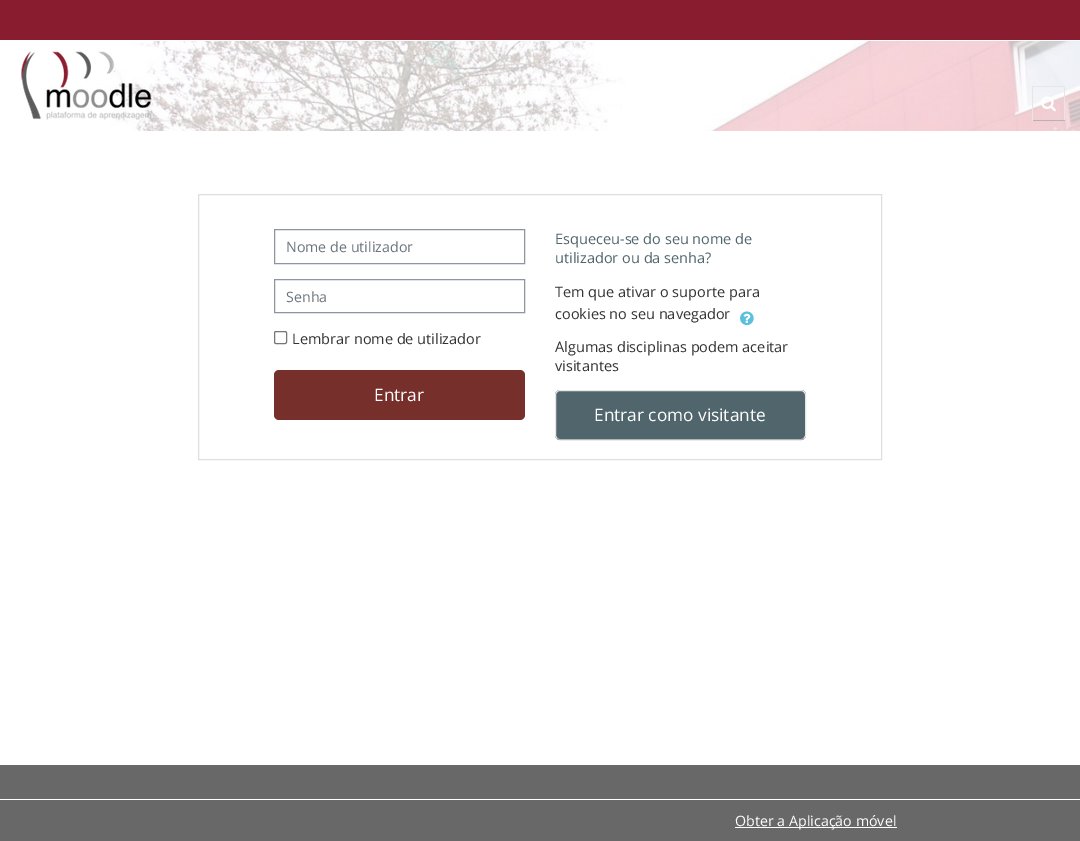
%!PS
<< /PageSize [1080 841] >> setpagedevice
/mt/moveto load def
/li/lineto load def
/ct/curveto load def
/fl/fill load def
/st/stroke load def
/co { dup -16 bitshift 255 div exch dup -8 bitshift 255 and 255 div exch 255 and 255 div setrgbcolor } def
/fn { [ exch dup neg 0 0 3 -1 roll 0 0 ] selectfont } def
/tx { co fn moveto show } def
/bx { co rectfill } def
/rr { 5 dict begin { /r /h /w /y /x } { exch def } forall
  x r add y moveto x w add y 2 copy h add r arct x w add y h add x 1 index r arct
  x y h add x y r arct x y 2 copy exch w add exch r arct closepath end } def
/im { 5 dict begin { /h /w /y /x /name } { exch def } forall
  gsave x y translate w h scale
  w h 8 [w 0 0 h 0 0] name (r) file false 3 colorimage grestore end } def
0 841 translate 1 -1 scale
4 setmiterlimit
0 0 1080 841 16#FFFFFF bx
(media/1.raw) 0 41 1080 90 im
0 0 1080 40 16#891C2E bx
(media/2.raw) 21 51 131 69 im
1032 86 33 1 16#E6E6E6 bx
1064 86 1 35 16#E6E6E6 bx
1032 120 33 1 16#B3B3B3 bx
1032 86 1 35 16#E6E6E6 bx
(media/3.raw) 1041 96 15 16 im
16#DFDFDF co
198.5 194.5 683 265 rectstroke
16#8F959E co
274.5 229.5 250 34 rectstroke
274.5 279.5 250 33 rectstroke
16#767676 co
274.5 331.5 12 12 1.5 rr st
16#772F2C co
274 370 251 50 5 rr fl
(media/4.raw) 740 311 14 15 im
16#51666C co
555 390 251 50 5 rr fl
16#B3B3B3 co
804 438 mt 803.5 439 802 439.5 801 439.5 ct 560 439.5 li 559 439.5 557.5 439 557 438 ct st
16#E6E6E6 co
557 438 mt 556 437.5 555.5 436 555.5 435 ct 555.5 395 li 555.5 394 556 392.5 557 392 ct 557.5 391 559 390.5 560 390.5 ct 801 390.5 li 802 390.5 803.5 391 804 392 ct 805 392.5 805.5 394 805.5 395 ct 805.5 435 li 805.5 436 805 437.5 804 438 ct st
0 765 1080 76 16#686868 bx
0 799 1080 1 16#FFFFFF bx
735 827 162 1 16#FFFFFF bx
(Nome de utilizador) 286 252 /OpenSans-Regular 14.25 16#6C757D tx
(Senha) 286 302 /OpenSans-Regular 14.25 16#6C757D tx
(Lembrar nome de utilizador) 292 344 /OpenSans-Regular 14.5 16#333333 tx
(Entrar) 374 401 /OpenSans-Regular 17.25 16#FFFFFF tx
(Esqueceu-se do seu nome de) 555 244 /OpenSans-Regular 14.5 16#51666C tx
(utilizador ou da senha?) 555 263 /OpenSans-Regular 14.5 16#51666C tx
(Tem que ativar o suporte para) 555 297 /OpenSans-Regular 14.5 16#333333 tx
(cookies no seu navegador) 555 319 /OpenSans-Regular 14.5 16#333333 tx
(Algumas disciplinas podem aceitar) 555 352 /OpenSans-Regular 14.5 16#333333 tx
(visitantes) 555 371 /OpenSans-Regular 14.5 16#333333 tx
(Entrar como visitante) 594 421 /OpenSans-Regular 17.25 16#FFFFFF tx
(Obter a Aplicação móvel) 735 826 /OpenSans-Regular 14.25 16#FFFFFF tx
showpage
